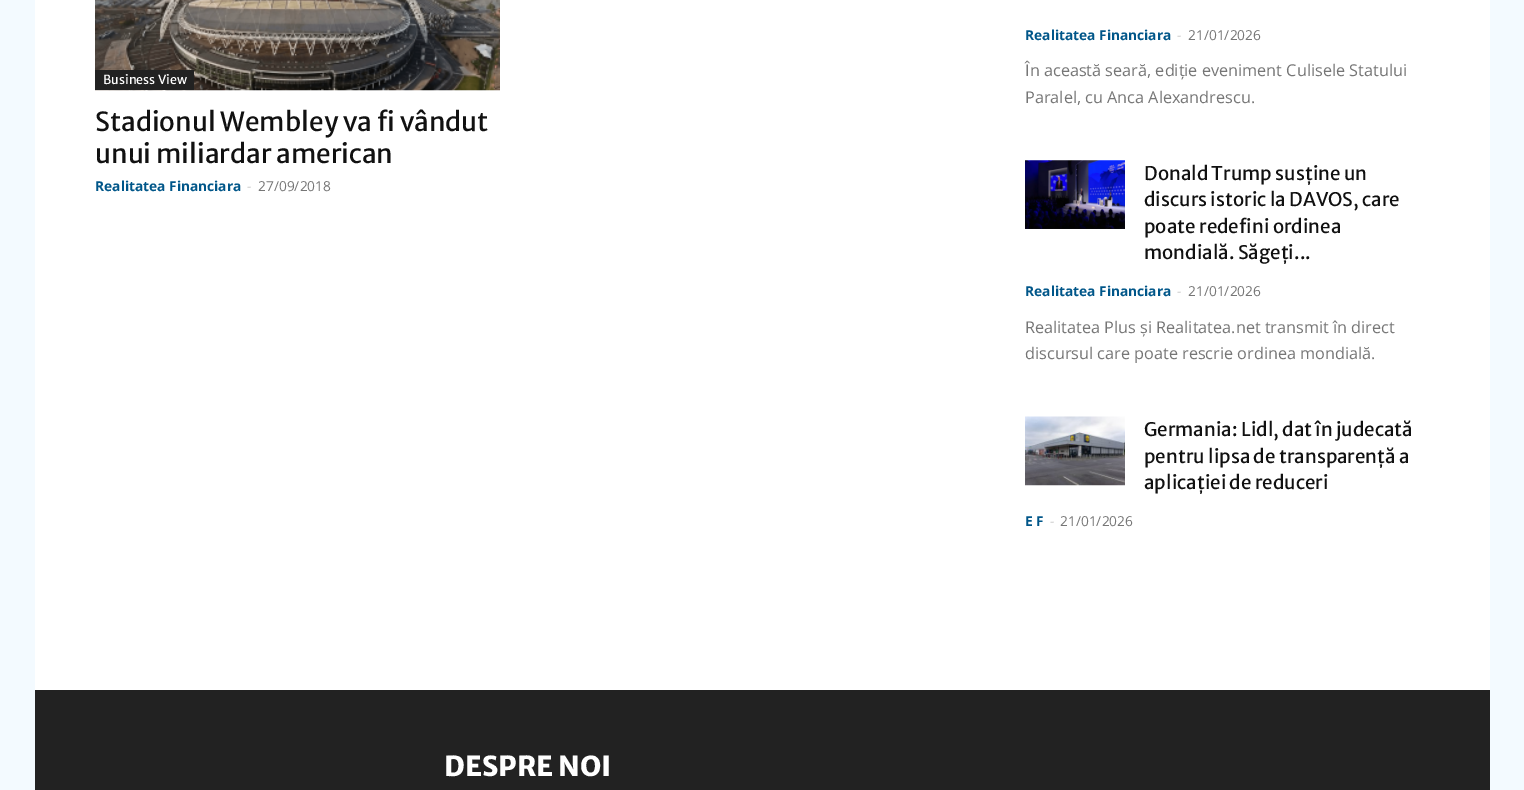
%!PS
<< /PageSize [1524 790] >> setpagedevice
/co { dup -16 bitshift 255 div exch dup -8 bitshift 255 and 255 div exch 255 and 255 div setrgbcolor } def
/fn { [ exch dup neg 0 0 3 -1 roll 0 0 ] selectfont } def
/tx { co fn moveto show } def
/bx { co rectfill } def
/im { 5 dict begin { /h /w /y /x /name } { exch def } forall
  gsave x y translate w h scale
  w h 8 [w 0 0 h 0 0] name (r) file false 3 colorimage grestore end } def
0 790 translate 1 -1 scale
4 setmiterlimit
0 0 1524 790 16#F3FAFF bx
35 0 1455 690 16#FFFFFF bx
(media/1.raw) 95 0 405 91 im
95 70 99 20 16#222222 bx
(media/2.raw) 1025 160 100 69 im
(media/3.raw) 1025 416 100 70 im
35 690 1455 100 16#222222 bx
(Business View) 103 84 /MerriweatherSans-Regular 12.5 16#FFFFFF tx
(Stadionul Wembley va fi vândut) 95 131 /MerriweatherSans-Regular 26.25 16#111111 tx
(unui miliardar american) 95 163 /MerriweatherSans-Regular 26.25 16#111111 tx
(Realitatea Financiara) 95 191 /OpenSans-Bold 13.75 16#005689 tx
(-) 247 191 /OpenSans-Regular 13.75 16#CCCCCC tx
(27/09/2018) 258 191 /OpenSans-Regular 13.75 16#767676 tx
(Realitatea Financiara) 1025 40 /OpenSans-Bold 13.75 16#005689 tx
(-) 1177 40 /OpenSans-Regular 13.75 16#CCCCCC tx
(21/01/2026) 1188 40 /OpenSans-Regular 13.75 16#767676 tx
(În această seară, ediție eveniment Culisele Statului) 1025 76 /OpenSans-Regular 16.25 16#767676 tx
(Paralel, cu Anca Alexandrescu.) 1025 103 /OpenSans-Regular 16.25 16#767676 tx
(Donald Trump susține un) 1144 180 /MerriweatherSans-Regular 18.75 16#111111 tx
(discurs istoric la DAVOS, care) 1144 206 /MerriweatherSans-Regular 18.75 16#111111 tx
(poate redefini ordinea) 1144 233 /MerriweatherSans-Regular 18.75 16#111111 tx
(mondială. Săgeți...) 1144 259 /MerriweatherSans-Regular 18.75 16#111111 tx
(Realitatea Financiara) 1025 296 /OpenSans-Bold 13.75 16#005689 tx
(-) 1177 296 /OpenSans-Regular 13.75 16#CCCCCC tx
(21/01/2026) 1188 296 /OpenSans-Regular 13.75 16#767676 tx
(Realitatea Plus și Realitatea.net transmit în direct) 1025 333 /OpenSans-Regular 16.25 16#767676 tx
(discursul care poate rescrie ordinea mondială.) 1025 359 /OpenSans-Regular 16.25 16#767676 tx
(Germania: Lidl, dat în judecată) 1144 436 /MerriweatherSans-Regular 18.75 16#111111 tx
(pentru lipsa de transparență a) 1144 463 /MerriweatherSans-Regular 18.75 16#111111 tx
(aplicației de reduceri) 1144 489 /MerriweatherSans-Regular 18.75 16#111111 tx
(E F) 1025 526 /OpenSans-Bold 13.75 16#005689 tx
(-) 1050 526 /OpenSans-Regular 13.75 16#CCCCCC tx
(21/01/2026) 1060 526 /OpenSans-Regular 13.75 16#767676 tx
(DESPRE NOI) 444 776 /MerriweatherSans-ExtraBold 27.5 16#FFFFFF tx
showpage
